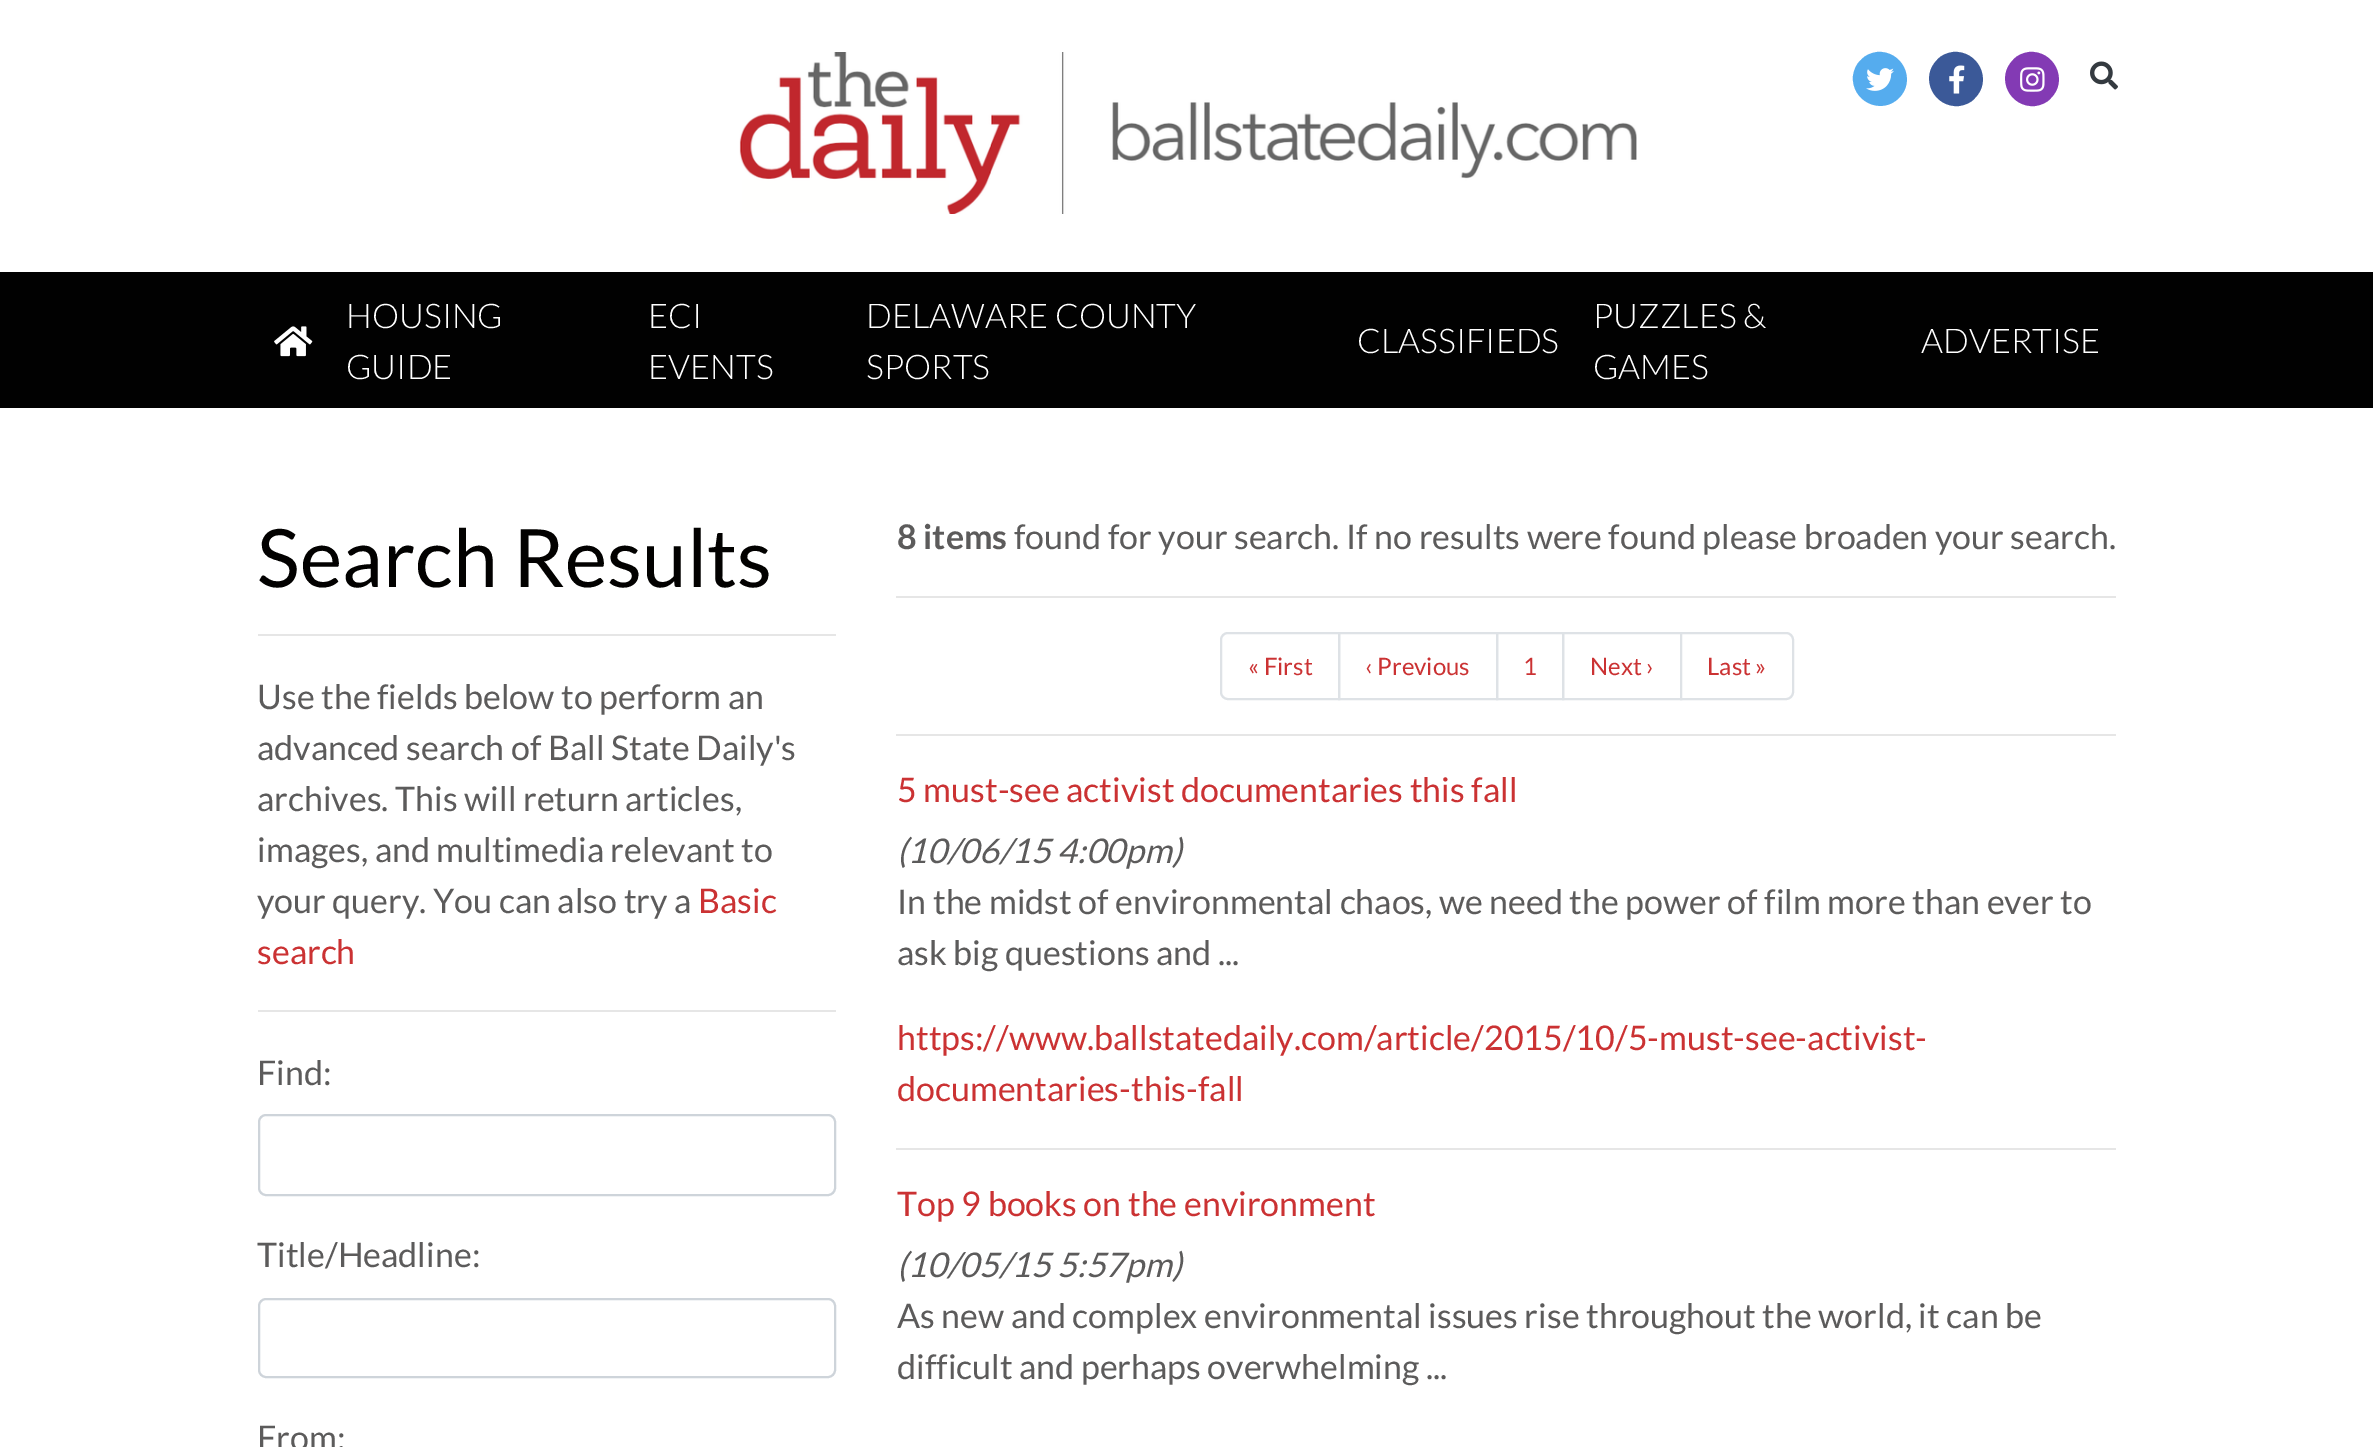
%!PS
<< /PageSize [2373 1447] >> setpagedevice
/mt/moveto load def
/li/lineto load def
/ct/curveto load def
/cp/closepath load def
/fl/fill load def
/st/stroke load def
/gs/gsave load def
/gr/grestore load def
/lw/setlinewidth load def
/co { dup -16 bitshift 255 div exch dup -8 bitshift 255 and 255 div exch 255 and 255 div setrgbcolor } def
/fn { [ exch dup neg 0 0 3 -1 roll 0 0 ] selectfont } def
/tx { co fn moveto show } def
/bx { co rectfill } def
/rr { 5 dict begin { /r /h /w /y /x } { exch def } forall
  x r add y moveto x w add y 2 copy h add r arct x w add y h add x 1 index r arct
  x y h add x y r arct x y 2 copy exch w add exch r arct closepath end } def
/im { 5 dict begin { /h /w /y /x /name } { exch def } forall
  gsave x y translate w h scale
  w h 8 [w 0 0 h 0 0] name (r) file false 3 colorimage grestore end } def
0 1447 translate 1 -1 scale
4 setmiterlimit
0 0 2373 1447 16#FFFFFF bx
(media/1.raw) 739 52 898 162 im
16#55ACEE co
1861 60 mt 1865 55 1871 53 1877 52 ct 1902 50 1917 80 1899 98 ct 1881 116 1851 101 1853 76 ct 1854 70 1856 64 1861 60 ct cp fl
(media/2.raw) 1866 68 28 23 im
16#3B5998 co
1937 60 mt 1941 55 1947 53 1953 52 ct 1978 50 1993 80 1975 98 ct 1971 103 1965 105 1959 106 ct 1934 108 1919 78 1937 60 ct cp fl
(media/3.raw) 1949 65 16 29 im
16#833AB4 co
2013 60 mt 2017 55 2023 53 2029 52 ct 2054 50 2069 80 2051 98 ct 2047 103 2041 105 2035 106 ct 2010 108 1995 78 2013 60 ct cp fl
(media/4.raw) 2020 67 25 25 im
(media/5.raw) 2090 61 28 29 im
0 272 2373 136 16#010101 bx
(media/6.raw) 274 326 39 31 im
258 634 578 2 16#E6E6E6 bx
258 1010 578 2 16#E6E6E6 bx
16#CED4DA co
2 lw
259 1115 576 80 7 rr st
259 1299 576 78 7 rr st
896 596 1220 2 16#E6E6E6 bx
16#DEE2E6 co
1228 633 mt 1339 633 li 1339 699 li 1228 699 li 1224 699 1221 696 1221 692 ct 1221 640 li 1221 636 1224 633 1228 633 ct cp st
1339 633 158 66 rectstroke
1497 633 66 66 rectstroke
1563 633 118 66 rectstroke
16#FFFFFF co
1681 633 mt 1786 633 li 1790 633 1793 636 1793 640 ct 1793 692 li 1793 696 1790 699 1786 699 ct 1681 699 li cp gs fl gr
16#DEE2E6 co
st
896 734 1220 2 16#E6E6E6 bx
896 1148 1220 2 16#E6E6E6 bx
(HOUSING) 346 328 /Lato-Light 34 16#FFFFFF tx
(GUIDE) 346 379 /Lato-Light 34 16#FFFFFF tx
(ECI) 648 328 /Lato-Light 34 16#FFFFFF tx
(EVENTS) 648 379 /Lato-Light 34 16#FFFFFF tx
(DELAWARE COUNTY) 866 328 /Lato-Light 34 16#FFFFFF tx
(SPORTS) 866 379 /Lato-Light 34 16#FFFFFF tx
(CLASSIFIEDS) 1357 353 /Lato-Light 34 16#FFFFFF tx
(PUZZLES &) 1593 328 /Lato-Light 34 16#FFFFFF tx
(GAMES) 1593 379 /Lato-Light 34 16#FFFFFF tx
(ADVERTISE) 1921 353 /Lato-Light 34 16#FFFFFF tx
(Search Results) 257 587 /Lato-Regular 80.5 16#020100 tx
(Use the fields below to perform an) 257 709 /Lato-Regular 34 16#5C5B5B tx
(advanced search of Ball State Daily's) 257 760 /Lato-Regular 34 16#5C5B5B tx
(archives. This will return articles,) 257 811 /Lato-Regular 34 16#5C5B5B tx
(images, and multimedia relevant to) 257 862 /Lato-Regular 34 16#5C5B5B tx
(your query. You can also try a) 257 913 /Lato-Regular 34 16#5C5B5B tx
(Basic) 698 913 /Lato-Regular 34 16#CB3233 tx
(search) 257 964 /Lato-Regular 34 16#CB3233 tx
(Find:) 257 1085 /Lato-Regular 34 16#5C5B5B tx
(Title/Headline:) 257 1267 /Lato-Regular 34 16#5C5B5B tx
(From:) 257 1450 /Lato-Regular 34 16#5C5B5B tx
(8 items) 897 549 /Lato-Bold 34 16#5C5B5B tx
(found for your search. If no results were found please broaden your search.) 1014 549 /Lato-Regular 34 16#5C5B5B tx
(« First) 1248 675 /Lato-Regular 24 16#CB3233 tx
(‹ Previous) 1365 675 /Lato-Regular 24 16#CB3233 tx
(1) 1523 675 /Lato-Regular 24 16#CB3233 tx
(Next ›) 1590 675 /Lato-Regular 24 16#CB3233 tx
(Last ») 1707 675 /Lato-Regular 24 16#CB3233 tx
(5 must-see activist documentaries this fall) 897 802 /Lato-Regular 34 16#CB3233 tx
(\(10/06/15 4:00pm\)) 897 863 /Lato-Italic 34 16#5C5B5B tx
(In the midst of environmental chaos, we need the power of film more than ever to) 897 914 /Lato-Regular 34 16#5C5B5B tx
(ask big questions and ...) 897 965 /Lato-Regular 34 16#5C5B5B tx
(https://www.ballstatedaily.com/article/2015/10/5-must-see-activist-) 897 1050 /Lato-Regular 34 16#CB3233 tx
(documentaries-this-fall) 897 1101 /Lato-Regular 34 16#CB3233 tx
(Top 9 books on the environment) 897 1216 /Lato-Regular 34 16#CB3233 tx
(\(10/05/15 5:57pm\)) 897 1277 /Lato-Italic 34 16#5C5B5B tx
(As new and complex environmental issues rise throughout the world, it can be) 897 1328 /Lato-Regular 34 16#5C5B5B tx
(difficult and perhaps overwhelming ...) 897 1379 /Lato-Regular 34 16#5C5B5B tx
showpage
